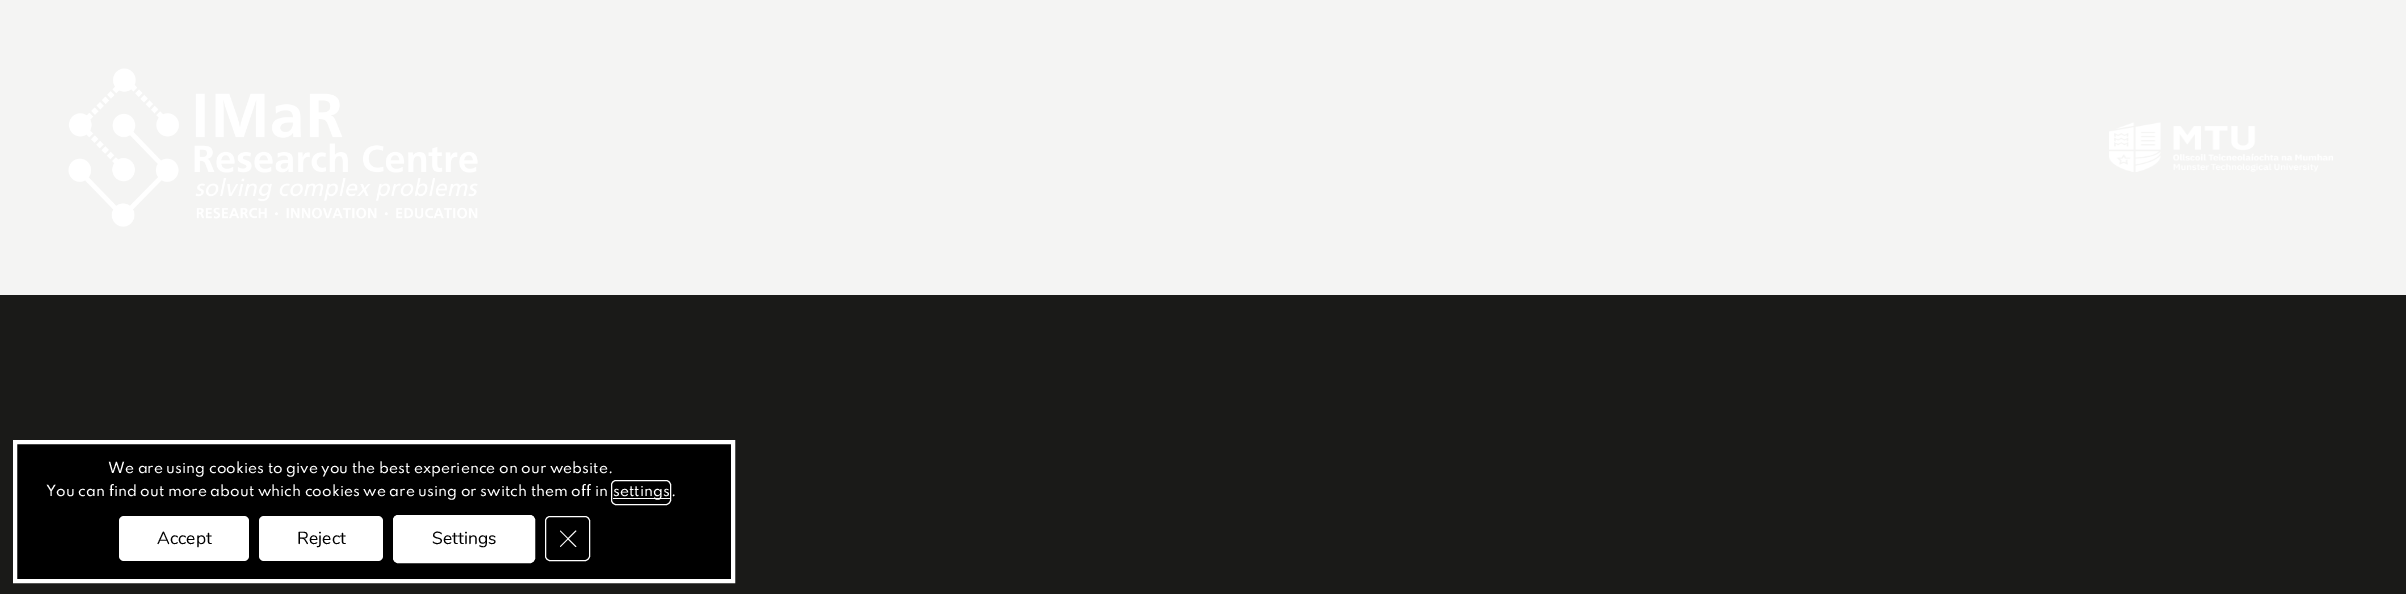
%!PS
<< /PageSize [2406 594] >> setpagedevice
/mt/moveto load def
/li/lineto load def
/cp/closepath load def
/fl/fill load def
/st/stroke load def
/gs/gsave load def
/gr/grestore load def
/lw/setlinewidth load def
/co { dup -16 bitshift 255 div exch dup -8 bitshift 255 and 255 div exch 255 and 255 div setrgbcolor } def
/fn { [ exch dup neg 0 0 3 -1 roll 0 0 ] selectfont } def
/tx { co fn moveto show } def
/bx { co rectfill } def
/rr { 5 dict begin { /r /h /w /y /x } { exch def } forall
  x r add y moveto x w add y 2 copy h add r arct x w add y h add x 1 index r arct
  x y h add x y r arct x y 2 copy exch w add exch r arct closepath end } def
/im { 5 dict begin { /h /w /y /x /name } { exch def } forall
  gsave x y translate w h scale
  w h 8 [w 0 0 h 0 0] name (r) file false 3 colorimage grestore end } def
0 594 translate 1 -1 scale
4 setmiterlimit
0 0 2406 594 16#1A1A18 bx
0 0 2406 295 16#F4F4F3 bx
(media/1.raw) 68 68 410 159 im
(media/2.raw) 2109 122 224 50 im
16#000000 co
15 442 mt 733 442 li 733 581 li 15 581 li cp gs fl gr
16#FFFFFF co
4 lw
st
1 lw
611.5 480.5 59 24 4.5 rr st
613 498 57 1 16#FFFFFF bx
119 516 130 45 5 rr fl
259 516 124 45 5 rr fl
393.5 515.5 141 47 4.5 rr gs fl gr
st
545.5 516.5 44 44 4.5 rr st
575.5 530.5 mt 576.5 531 li 560.5 547 li 560 546.5 li cp fl
560 531 mt 560.5 530.5 li 576.5 546.5 li 575.5 547 li cp fl
(We are using cookies to give you the best experience on our website.) 108 473 /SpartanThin-Medium 13.75 16#FFFFFF tx
(You can find out more about which cookies we are using or switch them off in) 46 496 /SpartanThin-Medium 13.75 16#FFFFFF tx
(settings) 613 496 /SpartanThin-Medium 13.75 16#FFFFFF tx
(.) 671 496 /SpartanThin-Medium 13.75 16#FFFFFF tx
(Accept) 157 544 /Nunito-Regular 17.5 16#000000 tx
(Reject) 297 544 /Nunito-Regular 17.5 16#000000 tx
(Settings) 432 544 /Nunito-Regular 17.5 16#000000 tx
showpage
